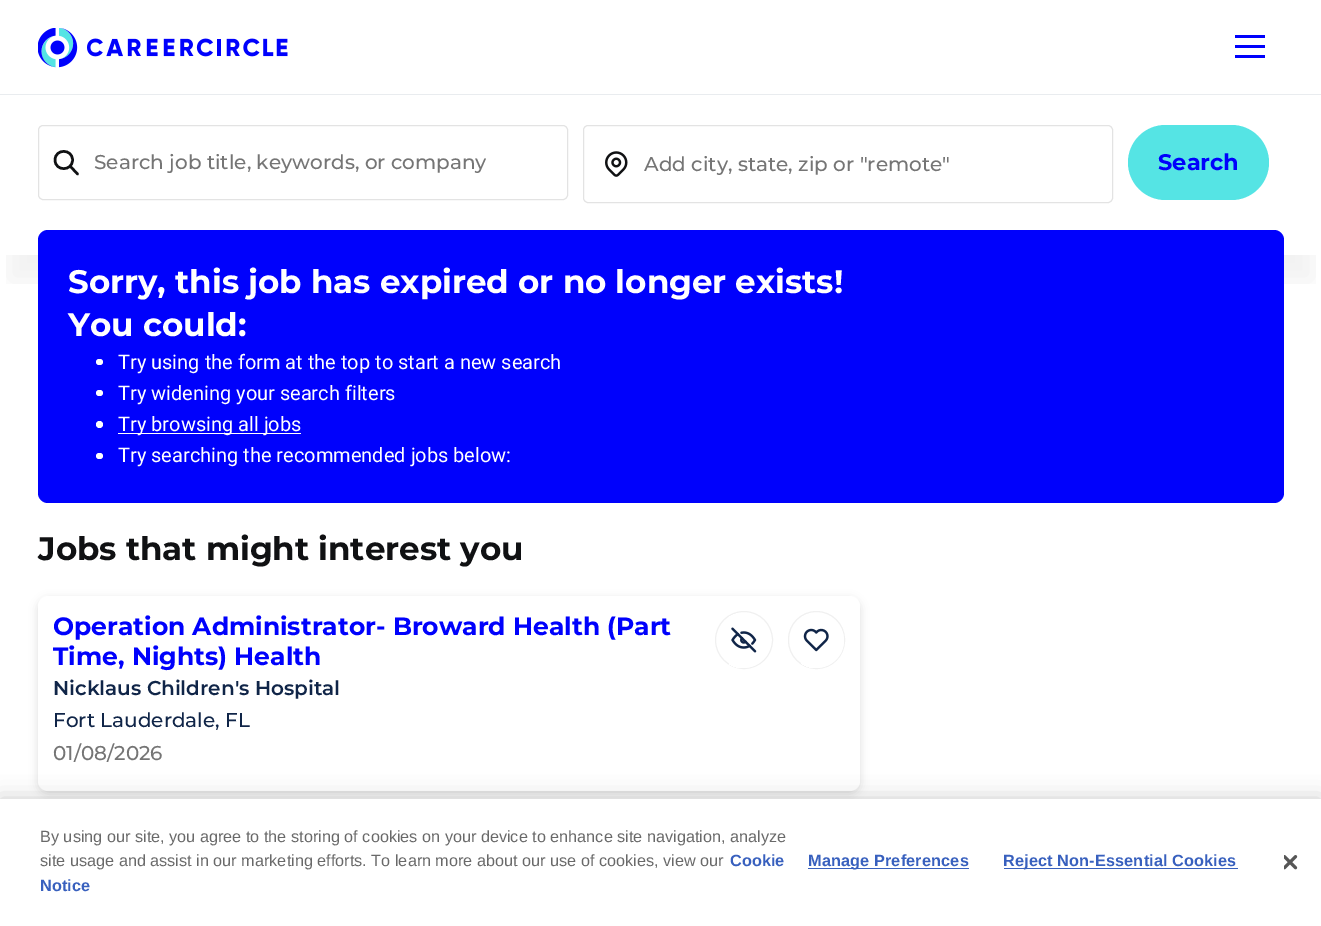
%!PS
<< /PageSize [1321 926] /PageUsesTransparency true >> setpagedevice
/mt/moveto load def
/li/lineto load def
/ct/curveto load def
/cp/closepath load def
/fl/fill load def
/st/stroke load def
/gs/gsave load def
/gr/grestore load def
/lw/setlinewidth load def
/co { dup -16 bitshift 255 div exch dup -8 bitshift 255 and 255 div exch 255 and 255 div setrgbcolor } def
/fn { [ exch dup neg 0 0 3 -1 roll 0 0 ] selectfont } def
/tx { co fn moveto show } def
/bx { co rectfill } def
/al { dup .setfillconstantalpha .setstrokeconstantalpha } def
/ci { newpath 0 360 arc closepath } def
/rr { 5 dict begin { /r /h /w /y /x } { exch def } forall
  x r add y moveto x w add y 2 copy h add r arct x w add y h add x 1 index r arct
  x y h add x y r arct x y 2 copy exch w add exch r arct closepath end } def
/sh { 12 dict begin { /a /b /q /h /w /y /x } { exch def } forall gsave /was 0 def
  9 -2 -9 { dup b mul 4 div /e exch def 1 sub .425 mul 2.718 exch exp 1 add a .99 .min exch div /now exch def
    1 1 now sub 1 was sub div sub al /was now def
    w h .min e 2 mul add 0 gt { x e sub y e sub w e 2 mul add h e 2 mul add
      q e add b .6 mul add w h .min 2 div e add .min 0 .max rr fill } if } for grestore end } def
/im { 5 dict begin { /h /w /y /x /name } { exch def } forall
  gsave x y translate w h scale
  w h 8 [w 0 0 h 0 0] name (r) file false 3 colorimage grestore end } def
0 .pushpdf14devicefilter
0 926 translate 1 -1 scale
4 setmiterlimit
0 0 1321 926 16#FFFFFF bx
(media/1.raw) 38 28 250 40 im
1235 45 30 3 16#0001FC bx
1235 35 30 3 16#0001FC bx
1235 55 30 3 16#0001FC bx
gs
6 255 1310 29 rectclip
16#000000 co
9 138 1304 143 0 14.5 .05 sh
gr
0 94 1321 1 16#E9ECEF bx
16#E3E3E3 co
38.5 125.5 529 74 4.5 rr st
16#101113 co
2.5 lw
1 setlinecap
1 setlinejoin
55 160 mt 55 171.5 72.5 171.5 72.5 160 ct 72.5 148.5 55 148.5 55 160 ct 77.5 174 mt 70 166 li st
16#E3E3E3 co
1 lw
0 setlinecap
0 setlinejoin
583.5 125.5 529 77 4.5 rr st
(media/2.raw) 605 151 23 26 im
16#55E4E4 co
1128 125 141 75 37.5 rr fl
16#0001FC co
38 230 1246 273 10 rr fl
16#FFFFFF co
96 359 7 6 3 rr fl
96 390 7 6 3 rr fl
99.5 424.5 3.5 ci fl
118 433 183 1 16#FFFFFF bx
96 453 7 6 3 rr fl
16#000000 co
38 599 822 195 10 4.5 .12 sh
16#FFFFFF co
38 596 822 195 10 rr fl
16#F0F0F0 co
744 640 28.5 ci st
gs
716 613 55 55 27.5 rr clip newpath
16#FFFFFF co
729 613 mt 743.5 613 li 758.5 613 771 625.5 771 640.5 ct 771 655.5 758.5 668 743.5 668 ct 729 668 li cp fl
gr
(media/3.raw) 731 627 26 26 im
788.5 611.5 56 57 28 rr st
gs
789 613 55 55 27.5 rr clip newpath
16#FFFFFF co
801 613 mt 816.5 613 li 831.5 613 844 625.5 844 640.5 ct 844 655.5 831.5 668 816.5 668 ct 801 668 li cp fl
gr
(media/4.raw) 803 628 26 24 im
16#000000 co
0 799 1321 127 0 11 .2 sh
0 799 1321 127 16#FFFFFF bx
808 868 161 1 16#3860BE bx
1004 868 234 1 16#3860BE bx
(media/5.raw) 1284 855 14 15 im
(Search job title, keywords, or company) 94 169 /Montserrat-Medium 20 16#757575 tx
(Add city, state, zip or "remote") 644 171 /Montserrat-Medium 20 16#757575 tx
(Search) 1158 170 /Montserrat-Bold 22.5 16#0001FC tx
(Sorry, this job has expired or no longer exists!) 68 293 /Montserrat-Bold 32.5 16#FFFFFF tx
(You could:) 68 336 /Montserrat-Bold 32.5 16#FFFFFF tx
(Try using the form at the top to start a new search) 118 369 /Roboto-Regular 20 16#FFFFFF tx
(Try widening your search filters) 118 400 /Roboto-Regular 20 16#FFFFFF tx
(Try browsing all jobs) 118 431 /Roboto-Regular 20 16#FFFFFF tx
(Try searching the recommended jobs below:) 118 462 /Roboto-Regular 20 16#FFFFFF tx
(Jobs that might interest you) 38 560 /Montserrat-Bold 32.5 16#101113 tx
(Operation Administrator- Broward Health \(Part) 53 635 /Montserrat-Bold 25 16#0001FC tx
(Time, Nights\) Health) 53 665 /Montserrat-Bold 25 16#0001FC tx
(Nicklaus Children's Hospital) 53 695 /Montserrat-SemiBold 20 16#102548 tx
(Fort Lauderdale, FL) 53 727 /Montserrat-Medium 20 16#102548 tx
(01/08/2026) 53 760 /Montserrat-Medium 20 16#757575 tx
(By using our site, you agree to the storing of cookies on your device to enhance site navigation, analyze) 40 842 /LiberationSans-Regular 16.25 16#696969 tx
(site usage and assist in our marketing efforts. To learn more about our use of cookies, view our) 40 866 /LiberationSans-Regular 16.25 16#696969 tx
(Cookie) 730 866 /LiberationSans-Bold 16.25 16#3860BE tx
(Notice) 40 891 /LiberationSans-Bold 16.25 16#3860BE tx
808 866 mt .15 0 (Manage Preferences) ashow
1003 866 mt .15 0 (Reject Non-Essential Cookies) ashow
.poppdf14devicefilter showpage
